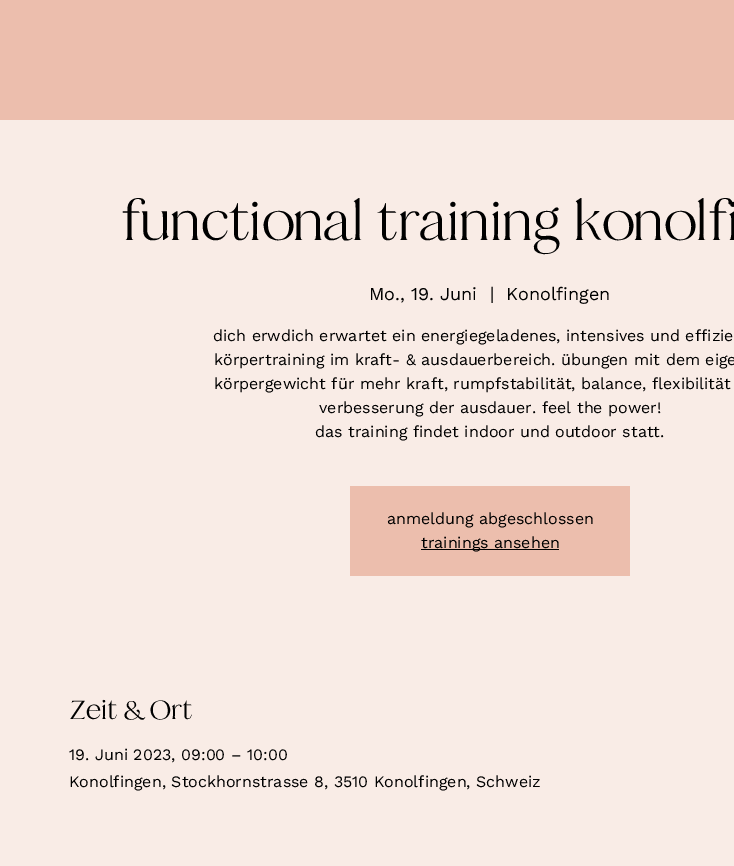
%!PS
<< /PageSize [734 866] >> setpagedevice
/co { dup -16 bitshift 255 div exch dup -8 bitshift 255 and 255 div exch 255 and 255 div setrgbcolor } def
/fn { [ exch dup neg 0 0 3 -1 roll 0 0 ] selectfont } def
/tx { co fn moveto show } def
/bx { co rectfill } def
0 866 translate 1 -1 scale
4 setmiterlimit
0 0 734 866 16#ECBEAD bx
0 120 734 746 16#F9ECE6 bx
350 486 280 90 16#ECBEAD bx
421 549 138 1 16#000000 bx
(functional training konolfi) 121 240 /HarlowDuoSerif-Regular 60 16#000000 tx
(Mo., 19. Juni) 369 300 /WorkSans-Regular 18 16#000000 tx
(|) 490 300 /WorkSans-Regular 18 16#000000 tx
(Konolfingen) 506 300 /WorkSans-Regular 18 16#000000 tx
(dich erwdich erwartet ein energiegeladenes, intensives und effizie) 213 341 /WorkSans-Regular 16 16#000000 tx
(körpertraining im kraft- & ausdauerbereich. übungen mit dem eige) 214 365 /WorkSans-Regular 16 16#000000 tx
(körpergewicht für mehr kraft, rumpfstabilität, balance, flexibilität) 214 389 /WorkSans-Regular 16 16#000000 tx
(verbesserung der ausdauer. feel the power!) 319 413 /WorkSans-Regular 16 16#000000 tx
(das training findet indoor und outdoor statt.) 315 437 /WorkSans-Regular 16 16#000000 tx
(anmeldung abgeschlossen) 387 524 /WorkSans-Regular 16 16#000000 tx
(trainings ansehen) 421 548 /WorkSans-Regular 16 16#000000 tx
(Zeit & Ort) 69 719 /HarlowDuoSerif-Regular 30 16#000000 tx
(19. Juni 2023, 09:00 – 10:00) 69 760 /WorkSans-Regular 16 16#000000 tx
(Konolfingen, Stockhornstrasse 8, 3510 Konolfingen, Schweiz) 69 787 /WorkSans-Regular 16 16#000000 tx
showpage
